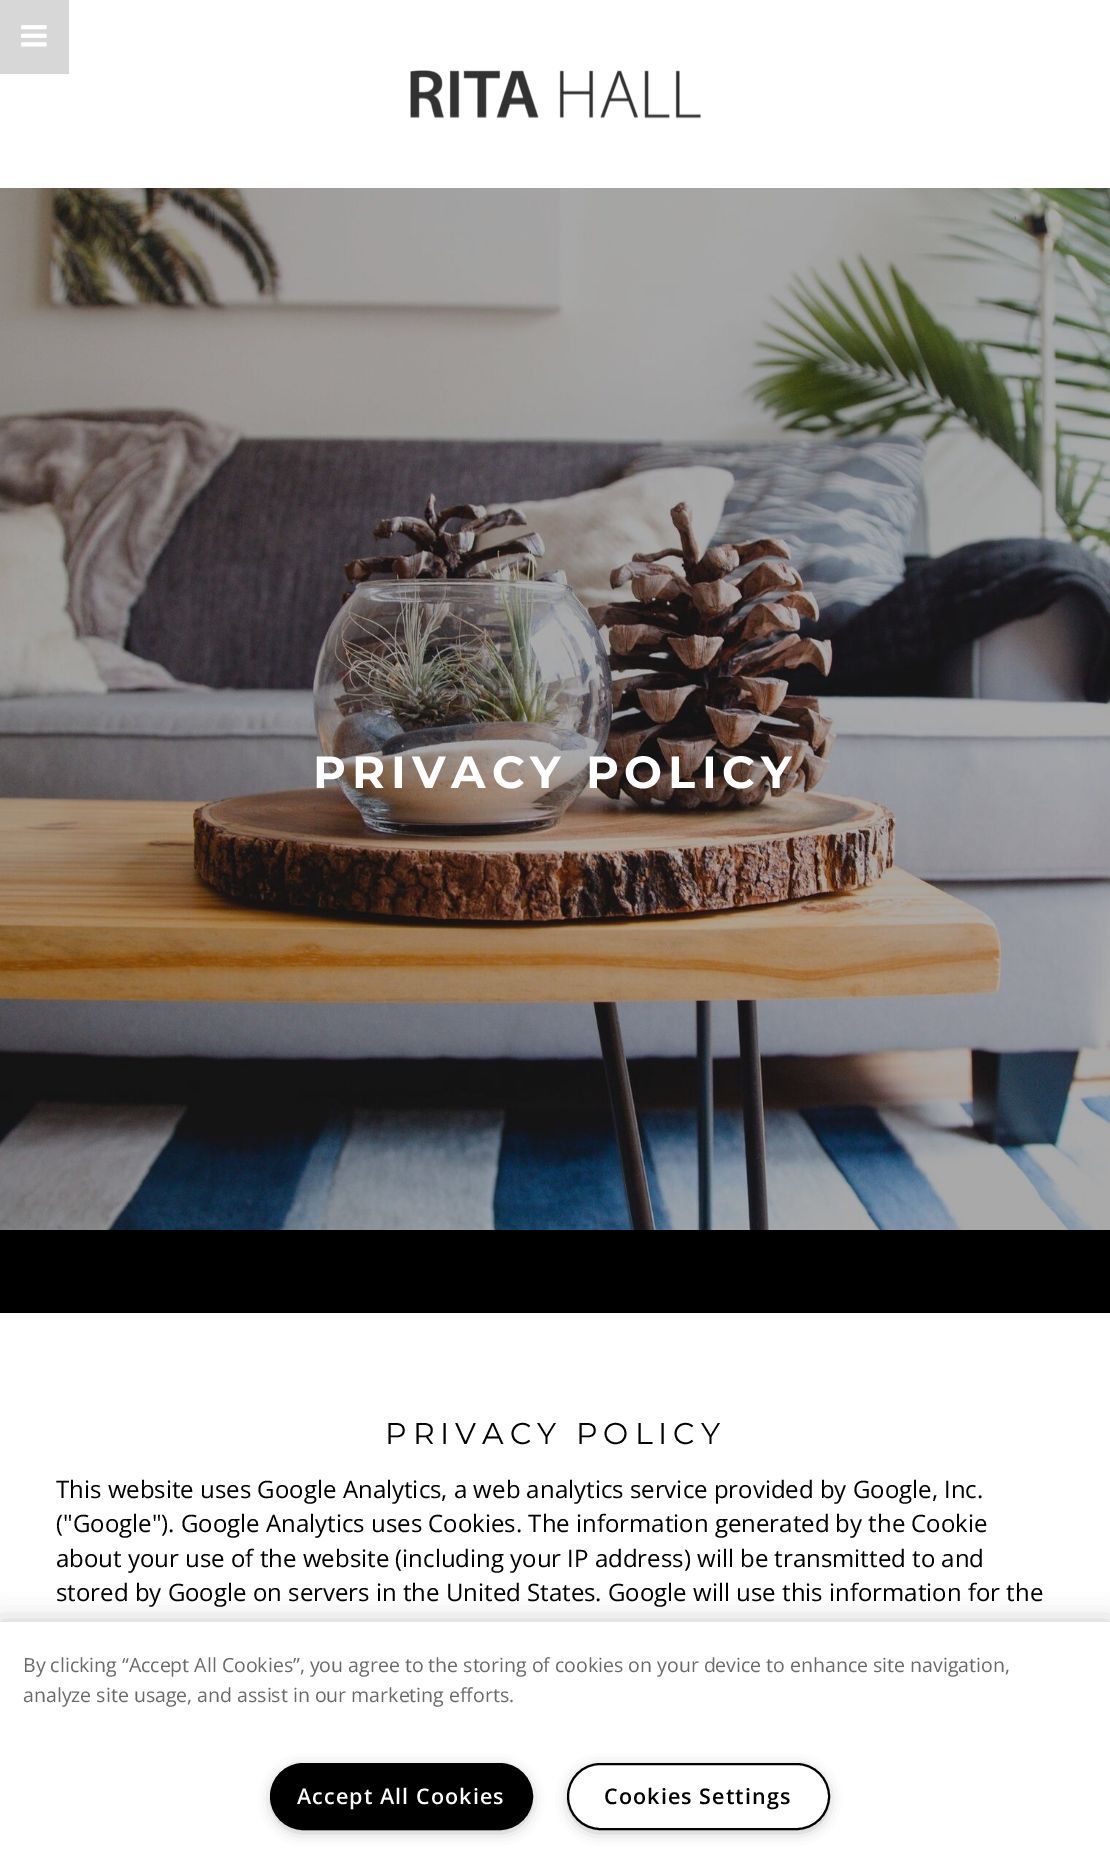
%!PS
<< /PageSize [1110 1860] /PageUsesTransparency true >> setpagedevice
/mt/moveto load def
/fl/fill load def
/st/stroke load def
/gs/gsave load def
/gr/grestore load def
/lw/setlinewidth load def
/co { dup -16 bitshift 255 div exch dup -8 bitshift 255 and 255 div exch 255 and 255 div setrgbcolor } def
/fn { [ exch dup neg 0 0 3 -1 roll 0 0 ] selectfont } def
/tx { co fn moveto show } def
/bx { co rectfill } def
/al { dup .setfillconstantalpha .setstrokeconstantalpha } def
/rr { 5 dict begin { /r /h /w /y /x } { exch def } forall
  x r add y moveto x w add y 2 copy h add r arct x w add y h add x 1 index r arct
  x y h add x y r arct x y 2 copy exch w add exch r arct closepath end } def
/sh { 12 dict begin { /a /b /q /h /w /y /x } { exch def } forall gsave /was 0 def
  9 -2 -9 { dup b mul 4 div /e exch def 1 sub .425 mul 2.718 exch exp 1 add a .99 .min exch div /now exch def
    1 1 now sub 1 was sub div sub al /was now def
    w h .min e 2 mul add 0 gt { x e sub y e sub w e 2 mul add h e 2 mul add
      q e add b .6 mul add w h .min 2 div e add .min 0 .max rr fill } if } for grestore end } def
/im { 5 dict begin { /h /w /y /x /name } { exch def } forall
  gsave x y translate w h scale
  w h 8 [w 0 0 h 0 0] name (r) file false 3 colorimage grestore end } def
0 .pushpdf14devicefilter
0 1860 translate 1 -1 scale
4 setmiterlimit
0 0 1110 1860 16#FFFFFF bx
0 0 69 74 16#D7D7D7 bx
(media/1.raw) 21 25 26 22 im
(media/2.raw) 410 70 291 49 im
0 1230 1110 83 16#000000 bx
(media/3.raw) 0 188 1110 1042 im
0 1622 1110 238 0 13.5 .2 sh
0 1622 1110 238 16#FFFFFF bx
16#999999 co
275 1770 253 59 29.5 7.5 1 sh
16#000000 co
271 1764 261 65 32.5 rr gs fl gr
2 lw
st
16#999999 co
572 1770 253 59 29.5 7.5 1 sh
16#FFFFFF co
568 1764 261 65 32.5 rr gs fl gr
16#000000 co
st
/Montserrat-Bold 45 fn
16#FFFFFF co
313 788 mt 6 0 (PRIVACY POLICY) ashow
/Montserrat-Regular 30 fn
16#000000 co
385 1444 mt 6 0 (PRIVACY POLICY) ashow
(This website uses Google Analytics, a web analytics service provided by Google, Inc.) 56 1498 /OpenSans-Regular 24 16#000000 tx
(\("Google"\). Google Analytics uses Cookies. The information generated by the Cookie) 56 1532 /OpenSans-Regular 24 16#000000 tx
(about your use of the website \(including your IP address\) will be transmitted to and) 56 1567 /OpenSans-Regular 24 16#000000 tx
(stored by Google on servers in the United States. Google will use this information for the) 56 1601 /OpenSans-Regular 24 16#000000 tx
(By clicking “Accept All Cookies”, you agree to the storing of cookies on your device to enhance site navigation,) 23 1672 /OpenSans-Regular 19.5 16#696969 tx
(analyze site usage, and assist in our marketing efforts.) 23 1702 /OpenSans-Regular 19.5 16#696969 tx
/OpenSans-SemiBold 21.5 fn
16#FFFFFF co
297 1804 mt 1.1 0 (Accept All Cookies) ashow
16#000000 co
604 1804 mt 1.1 0 (Cookies Settings) ashow
.poppdf14devicefilter showpage
